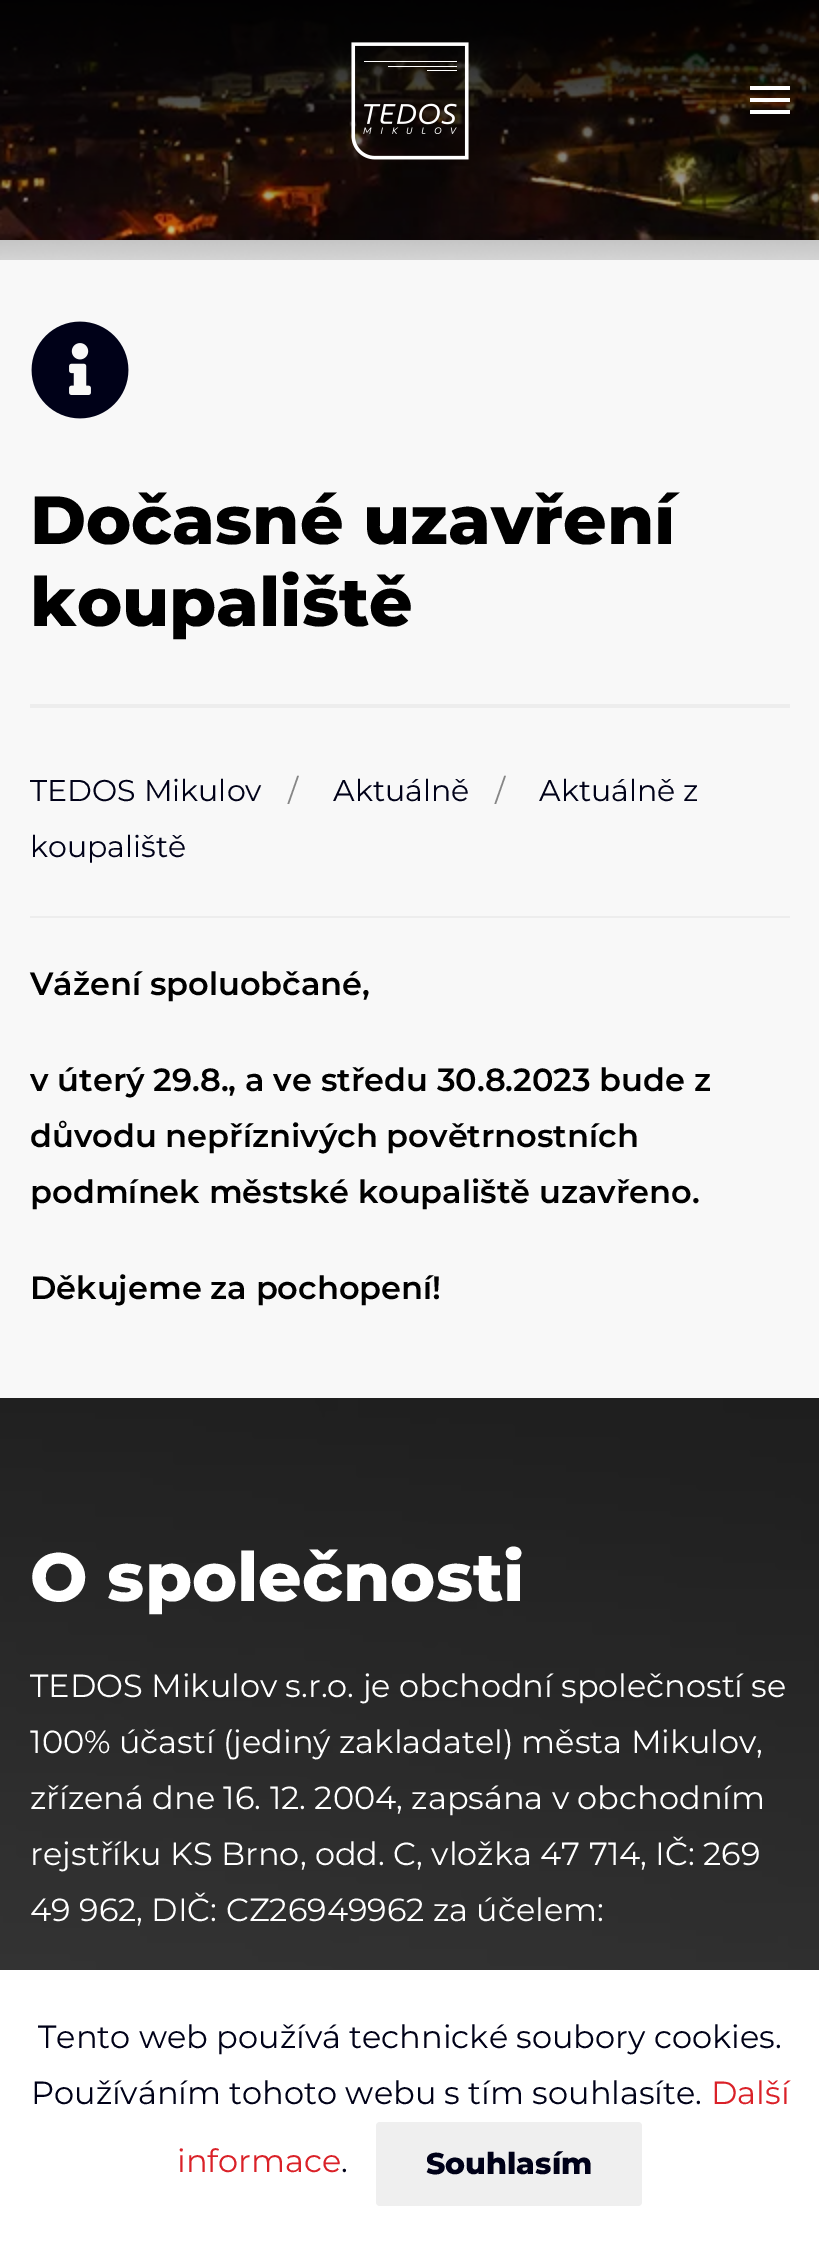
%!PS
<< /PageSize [819 2246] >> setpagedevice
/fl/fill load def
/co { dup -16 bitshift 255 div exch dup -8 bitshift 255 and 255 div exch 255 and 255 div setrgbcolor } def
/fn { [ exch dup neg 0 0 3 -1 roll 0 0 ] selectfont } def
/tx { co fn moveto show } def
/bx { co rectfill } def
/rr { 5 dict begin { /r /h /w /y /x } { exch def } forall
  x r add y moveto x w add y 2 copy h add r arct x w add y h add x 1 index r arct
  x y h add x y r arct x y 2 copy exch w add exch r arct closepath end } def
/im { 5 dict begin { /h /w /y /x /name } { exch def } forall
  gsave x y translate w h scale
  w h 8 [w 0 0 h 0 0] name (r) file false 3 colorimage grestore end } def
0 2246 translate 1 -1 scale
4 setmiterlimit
0 0 819 2246 16#FFFFFF bx
(media/3.raw) 0 0 819 240 im
0 240 819 1158 16#F8F8F8 bx
(media/1.raw) 0 0 819 260 im
(media/2.raw) 351 42 118 118 im
750 86 40 4 16#FFFFFF bx
750 98 40 4 16#FFFFFF bx
750 110 40 4 16#FFFFFF bx
(media/4.raw) 31 321 98 98 im
30 704 760 4 16#EDEDED bx
30 916 760 2 16#EDEDED bx
(media/5.raw) 0 1398 819 572 im
16#EFEFEF co
376 2122 266 84 4 rr fl
(Dočasné uzavření) 30 544 /Montserrat-Thin 68 16#000000 tx
(koupaliště) 30 626 /Montserrat-Thin 68 16#000000 tx
(/) 495 801 /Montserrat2-Thin 30 16#868686 tx
(Aktuálně z) 539 801 /Montserrat2-Thin 30 16#000118 tx
(koupaliště) 30 857 /Montserrat2-Thin 30 16#000118 tx
(TEDOS Mikulov) 30 801 /Montserrat2-Thin 30 16#000118 tx
(/) 288 801 /Montserrat2-Thin 30 16#868686 tx
(Aktuálně) 333 801 /Montserrat2-Thin 30 16#000118 tx
(Vážení spoluobčané,) 30 995 /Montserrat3-Thin 32 16#000000 tx
(v úterý 29.8., a ve středu 30.8.2023 bude z) 30 1091 /Montserrat3-Thin 32 16#000000 tx
(důvodu nepříznivých povětrnostních) 30 1147 /Montserrat3-Thin 32 16#000000 tx
(podmínek městské koupaliště uzavřeno.) 30 1203 /Montserrat3-Thin 32 16#000000 tx
(Děkujeme za pochopení!) 30 1299 /Montserrat3-Thin 32 16#000000 tx
(O společnosti) 30 1601 /Montserrat-Thin 68 16#FFFFFF tx
(TEDOS Mikulov s.r.o. je obchodní společností se) 30 1697 /Montserrat2-Thin 32 16#FFFFFF tx
(100% účastí \(jediný zakladatel\) města Mikulov,) 30 1753 /Montserrat2-Thin 32 16#FFFFFF tx
(zřízená dne 16. 12. 2004, zapsána v obchodním) 30 1809 /Montserrat2-Thin 32 16#FFFFFF tx
(rejstříku KS Brno, odd. C, vložka 47 714, IČ: 269) 30 1865 /Montserrat2-Thin 32 16#FFFFFF tx
(49 962, DIČ: CZ26949962 za účelem:) 30 1921 /Montserrat2-Thin 32 16#FFFFFF tx
(Tento web používá technické soubory cookies.) 38 2048 /Montserrat2-Thin 32 16#000118 tx
(Používáním tohoto webu s tím souhlasíte.) 31 2104 /Montserrat2-Thin 32 16#000118 tx
(Další) 711 2104 /Montserrat2-Thin 32 16#DA2128 tx
(informace) 177 2172 /Montserrat2-Thin 32 16#DA2128 tx
(.) 341 2172 /Montserrat2-Thin 32 16#000118 tx
(Souhlasím) 426 2174 /Montserrat-Thin 30 16#000118 tx
showpage
